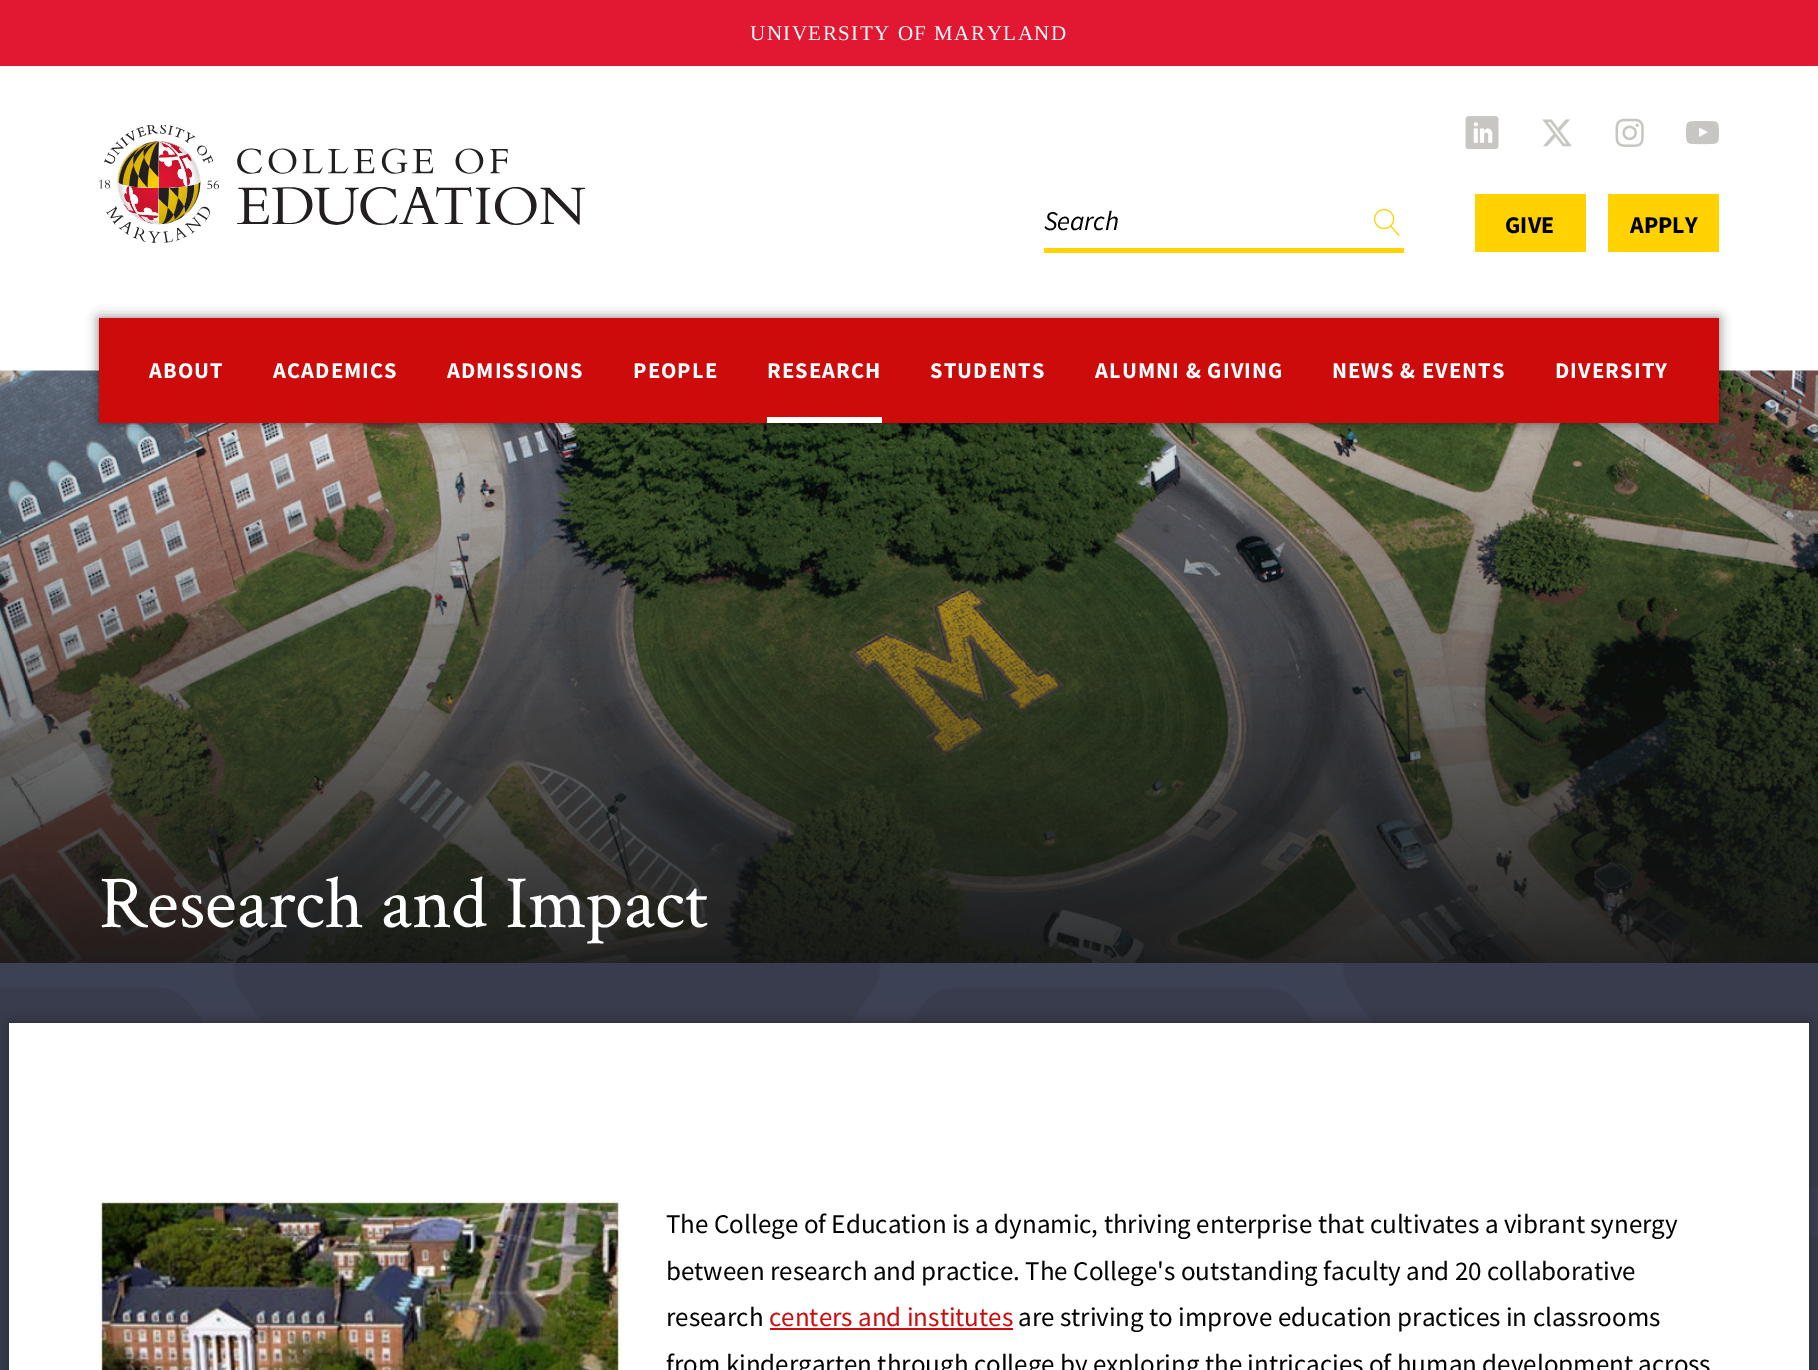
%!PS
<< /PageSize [1818 1370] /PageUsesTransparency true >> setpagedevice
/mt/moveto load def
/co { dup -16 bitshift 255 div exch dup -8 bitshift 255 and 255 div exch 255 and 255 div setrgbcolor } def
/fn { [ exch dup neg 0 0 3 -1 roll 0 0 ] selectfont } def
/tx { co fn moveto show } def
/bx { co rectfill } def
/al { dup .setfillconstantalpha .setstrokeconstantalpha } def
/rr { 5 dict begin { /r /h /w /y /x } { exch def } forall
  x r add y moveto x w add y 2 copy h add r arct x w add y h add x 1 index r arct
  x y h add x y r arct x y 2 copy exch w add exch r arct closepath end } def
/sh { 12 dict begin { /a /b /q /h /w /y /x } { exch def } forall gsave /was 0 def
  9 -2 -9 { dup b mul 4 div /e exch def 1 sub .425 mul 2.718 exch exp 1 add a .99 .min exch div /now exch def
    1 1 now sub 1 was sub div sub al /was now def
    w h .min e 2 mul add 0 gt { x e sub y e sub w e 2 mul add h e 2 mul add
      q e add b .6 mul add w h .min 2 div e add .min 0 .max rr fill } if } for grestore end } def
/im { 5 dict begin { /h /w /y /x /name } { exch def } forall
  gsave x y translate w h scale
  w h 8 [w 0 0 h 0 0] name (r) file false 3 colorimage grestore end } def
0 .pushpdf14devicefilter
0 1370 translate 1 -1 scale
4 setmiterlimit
0 0 1818 1370 16#3C4254 bx
0 0 1818 66 16#E21833 bx
0 66 1818 305 16#FFFFFF bx
(media/1.raw) 99 125 486 118 im
(media/2.raw) 1465 116 34 34 im
(media/3.raw) 1542 119 30 28 im
(media/4.raw) 1615 118 29 29 im
(media/5.raw) 1686 120 33 25 im
1044 248 360 5 16#FFD200 bx
(media/6.raw) 1374 208 26 28 im
1475 194 111 58 16#FFD200 bx
1608 194 111 58 16#FFD200 bx
(media/7.raw) 0 370 1818 593 im
16#000000 co
99 318 1620 105 0 6 .5 sh
99 318 1620 105 16#CD0B0B bx
767 417 115 6 16#FFFFFF bx
(media/8.raw) 0 963 1818 407 im
16#000000 co
9 1023 1800 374 0 9 .3 sh
9 1023 1800 347 16#FFFFFF bx
(media/9.raw) 99 1200 522 170 im
770 1328 243 2 16#CD0B0B bx
/LiberationSerif-Regular 21 fn
16#FFFFFF co
750 40 mt 1.5 0 (UNIVERSITY OF MARYLAND) ashow
/SourceSansPro-Italic 27 fn
16#000000 co
1044 230 mt -.25 0 (Search) ashow
(GIVE) 1505 233 /SourceSansPro-Bold 24 16#000000 tx
(APPLY) 1630 233 /SourceSansPro-Bold 24 16#000000 tx
/SourceSansPro-Bold 22.5 fn
16#FFFFFF co
149 378 mt 1.1 0 (ABOUT) ashow
273 378 mt 1.1 0 (ACADEMICS) ashow
447 378 mt 1.1 0 (ADMISSIONS) ashow
633 378 mt 1.1 0 (PEOPLE) ashow
767 378 mt 1.1 0 (RESEARCH) ashow
930 378 mt 1.1 0 (STUDENTS) ashow
1095 378 mt 1.1 0 (ALUMNI & GIVING) ashow
1332 378 mt 1.1 0 (NEWS & EVENTS) ashow
1555 378 mt 1.1 0 (DIVERSITY) ashow
(Research and Impact) 99 927 /CrimsonText-Regular 75 16#FFFFFF tx
(The College of Education is a dynamic, thriving enterprise that cultivates a vibrant synergy) 666 1233 /SourceSansPro-Regular 27 16#000000 tx
(between research and practice. The College's outstanding faculty and 20 collaborative) 666 1280 /SourceSansPro-Regular 27 16#000000 tx
(research) 666 1326 /SourceSansPro-Regular 27 16#000000 tx
(centers and institutes) 769 1326 /SourceSansPro-Regular 27 16#CD0B0B tx
(are striving to improve education practices in classrooms) 1018 1326 /SourceSansPro-Regular 27 16#000000 tx
(from kindergarten through college by exploring the intricacies of human development across) 666 1373 /SourceSansPro-Regular 27 16#000000 tx
.poppdf14devicefilter showpage
